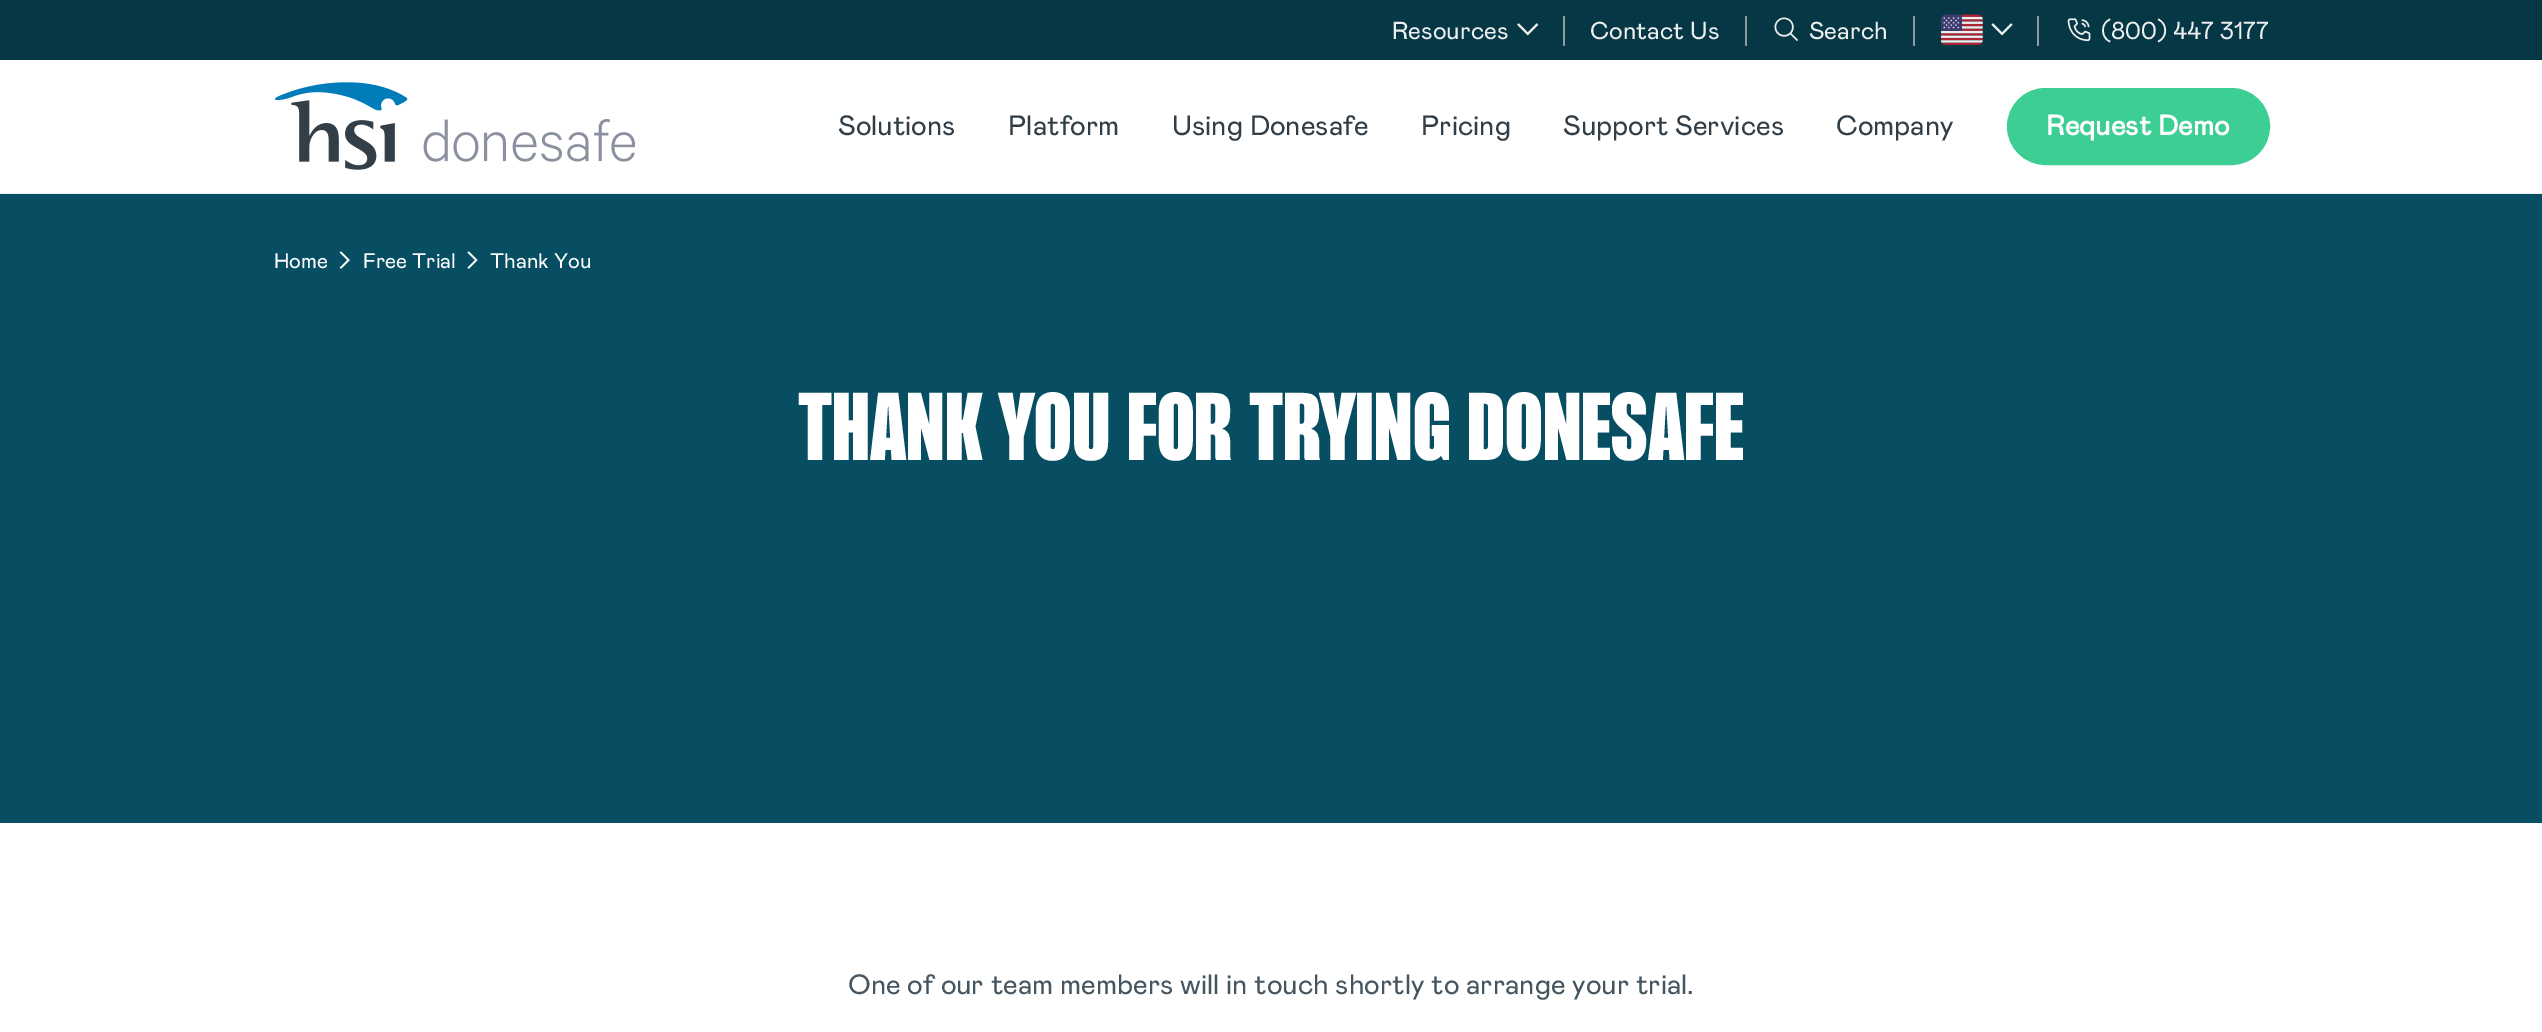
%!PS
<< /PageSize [2542 1032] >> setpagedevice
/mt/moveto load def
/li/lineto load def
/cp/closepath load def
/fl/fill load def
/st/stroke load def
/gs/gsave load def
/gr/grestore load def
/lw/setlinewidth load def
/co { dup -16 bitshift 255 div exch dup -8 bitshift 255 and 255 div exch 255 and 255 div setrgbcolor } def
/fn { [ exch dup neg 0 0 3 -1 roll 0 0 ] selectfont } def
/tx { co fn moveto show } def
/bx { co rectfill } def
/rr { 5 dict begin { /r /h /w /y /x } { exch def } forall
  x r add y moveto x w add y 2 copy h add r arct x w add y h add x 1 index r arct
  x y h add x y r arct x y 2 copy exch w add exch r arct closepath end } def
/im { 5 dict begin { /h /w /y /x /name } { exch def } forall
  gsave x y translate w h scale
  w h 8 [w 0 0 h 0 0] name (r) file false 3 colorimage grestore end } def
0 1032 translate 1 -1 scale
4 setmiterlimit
0 0 2542 1032 16#FFFFFF bx
16#EDEEEF co
0 192 mt 0 194 li 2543 194 li 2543 2 li 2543 192 li cp fl
0 192 2542 1 16#FFFFFF bx
0 0 2542 60 16#053745 bx
(media/1.raw) 1517 23 22 13 im
1563 16 2 30 16#9099A0 bx
1745 16 2 30 16#9099A0 bx
(media/2.raw) 1774 17 24 24 im
1913 16 2 30 16#9099A0 bx
(media/3.raw) 1941 14 42 31 im
(media/4.raw) 1991 23 22 13 im
2037 16 2 30 16#9099A0 bx
(media/5.raw) 2067 18 24 24 im
(media/6.raw) 275 82 360 88 im
16#3CCE93 co
2009 90 259 73 36.5 rr gs fl gr
4 lw
st
0 194 2542 629 16#074E62 bx
(media/7.raw) 339 251 11 18 im
(media/8.raw) 467 251 11 18 im
(Resources) 1392 39 /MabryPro-Regular 24.5 16#EDEEEF tx
(Contact Us) 1590 39 /MabryPro-Regular 24.5 16#EDEEEF tx
(Search) 1809 39 /MabryPro-Regular 24.5 16#EDEEEF tx
(\(800\) 447 3177) 2101 39 /MabryPro-Regular 24.5 16#EDEEEF tx
(Solutions) 838 135 /MabryPro-Regular 28 16#313E48 tx
(Platform) 1008 135 /MabryPro-Regular 28 16#313E48 tx
(Using Donesafe) 1172 135 /MabryPro-Regular 28 16#313E48 tx
(Pricing) 1421 135 /MabryPro-Regular 28 16#313E48 tx
(Support Services) 1563 135 /MabryPro-Regular 28 16#313E48 tx
(Company) 1836 135 /MabryPro-Regular 28 16#313E48 tx
(Request Demo) 2046 135 /MabryPro-Bold 28 16#FFFFFF tx
(Home) 274 268 /MabryPro-Regular 21 16#FFFFFF tx
(Free Trial) 363 268 /MabryPro-Regular 21 16#FFFFFF tx
(Thank You) 490 268 /MabryPro-Regular 21 16#FFFFFF tx
(THANK YOU FOR TRYING DONESAFE) 798 460 /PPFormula-Black 84 16#FFFFFF tx
(One of our team members will in touch shortly to arrange your trial.) 848 994 /MabryPro-Regular 28 16#465660 tx
showpage
